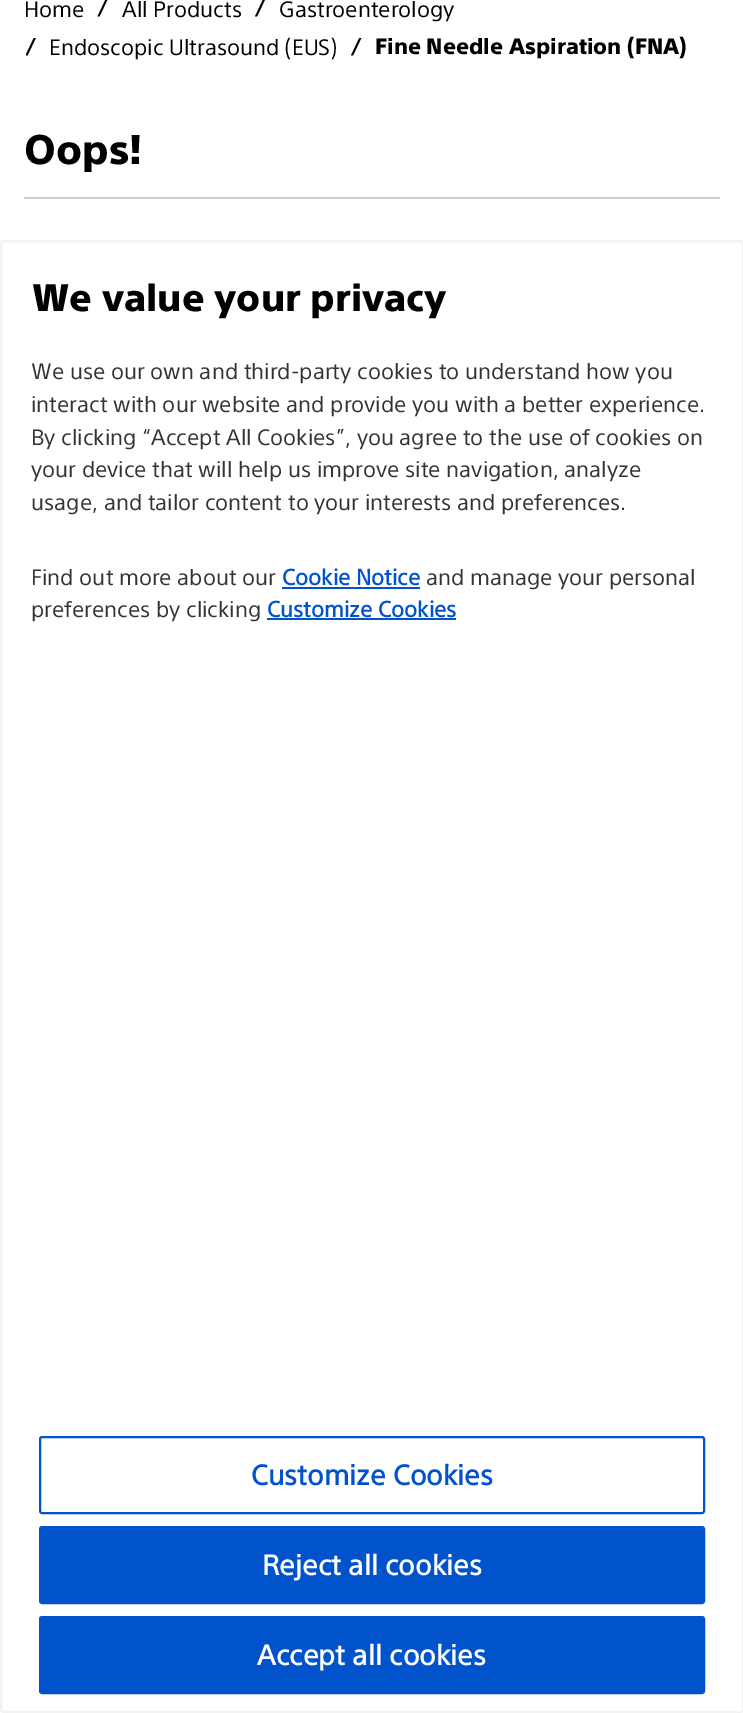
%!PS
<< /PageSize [743 1713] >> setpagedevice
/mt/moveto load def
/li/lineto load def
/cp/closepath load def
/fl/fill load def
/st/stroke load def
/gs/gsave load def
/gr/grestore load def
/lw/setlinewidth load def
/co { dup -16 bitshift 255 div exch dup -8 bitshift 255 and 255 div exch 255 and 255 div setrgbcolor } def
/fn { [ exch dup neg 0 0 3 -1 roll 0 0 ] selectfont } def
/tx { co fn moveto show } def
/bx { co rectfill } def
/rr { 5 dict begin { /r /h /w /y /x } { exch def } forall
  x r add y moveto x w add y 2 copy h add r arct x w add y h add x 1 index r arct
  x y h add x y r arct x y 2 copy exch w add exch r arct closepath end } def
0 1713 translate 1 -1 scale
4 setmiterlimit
0 0 743 1713 16#FFFFFF bx
16#000000 co
106 -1.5 mt 108 -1.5 li 99.5 16.5 li 97.5 16.5 li cp fl
263.5 -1.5 mt 265.5 -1.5 li 257 16.5 li 255 16.5 li cp fl
gs
26 38 10 18 rectclip
34 37.5 mt 36 37.5 li 27.5 55.5 li 25.5 55.5 li cp fl
gr
gs
351 38 11 18 rectclip
359.5 37.5 mt 361.5 37.5 li 353 55.5 li 351 55.5 li cp fl
gr
24 197 696 2 16#CCCCCC bx
16#F2F2F2 co
2 lw
1 241 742 1471 3 rr st
282 587 138 2 16#0153CC bx
267 618 189 2 16#0153CC bx
40 1437 664 76 2 rr st
40 1527 664 76 2 rr gs fl gr
st
40 1617 664 76 2 rr gs fl gr
st
(Home) 24 17 /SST-Regular 21.75 16#000000 tx
(All Products) 122 17 /SST-Regular 21.75 16#000000 tx
(Gastroenterology) 279 17 /SST-Regular 21.75 16#000000 tx
(Endoscopic Ultrasound \(EUS\)) 49 55 /SST-Regular 21.75 16#000000 tx
(Fine Needle Aspiration \(FNA\)) 375 54 /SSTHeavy-Black 21.75 16#000000 tx
(Oops!) 24 164 /SSTHeavy-Black 40.5 16#000000 tx
(We value your privacy) 32 311 /SSTHeavy-Black 37.5 16#000000 tx
(We use our own and third-party cookies to understand how you) 31 379 /SST-Regular 21.75 16#333333 tx
(interact with our website and provide you with a better experience.) 31 412 /SST-Regular 21.75 16#333333 tx
(By clicking “Accept All Cookies”, you agree to the use of cookies on) 31 445 /SST-Regular 21.75 16#333333 tx
(your device that will help us improve site navigation, analyze) 31 477 /SST-Regular 21.75 16#333333 tx
(usage, and tailor content to your interests and preferences.) 31 510 /SST-Regular 21.75 16#333333 tx
(Find out more about our) 31 585 /SST-Regular 21.75 16#333333 tx
(Cookie Notice) 282 585 /SST-Bold 21.75 16#0153CC tx
(and manage your personal) 426 585 /SST-Regular 21.75 16#333333 tx
(preferences by clicking) 31 617 /SST-Regular 21.75 16#333333 tx
(Customize Cookies) 267 617 /SST-Bold 21.75 16#0153CC tx
(Customize Cookies) 251 1485 /SST-Bold 27.75 16#0153CC tx
(Reject all cookies) 262 1575 /SST-Bold 27.75 16#FFFFFF tx
(Accept all cookies) 257 1665 /SST-Bold 27.75 16#FFFFFF tx
showpage
